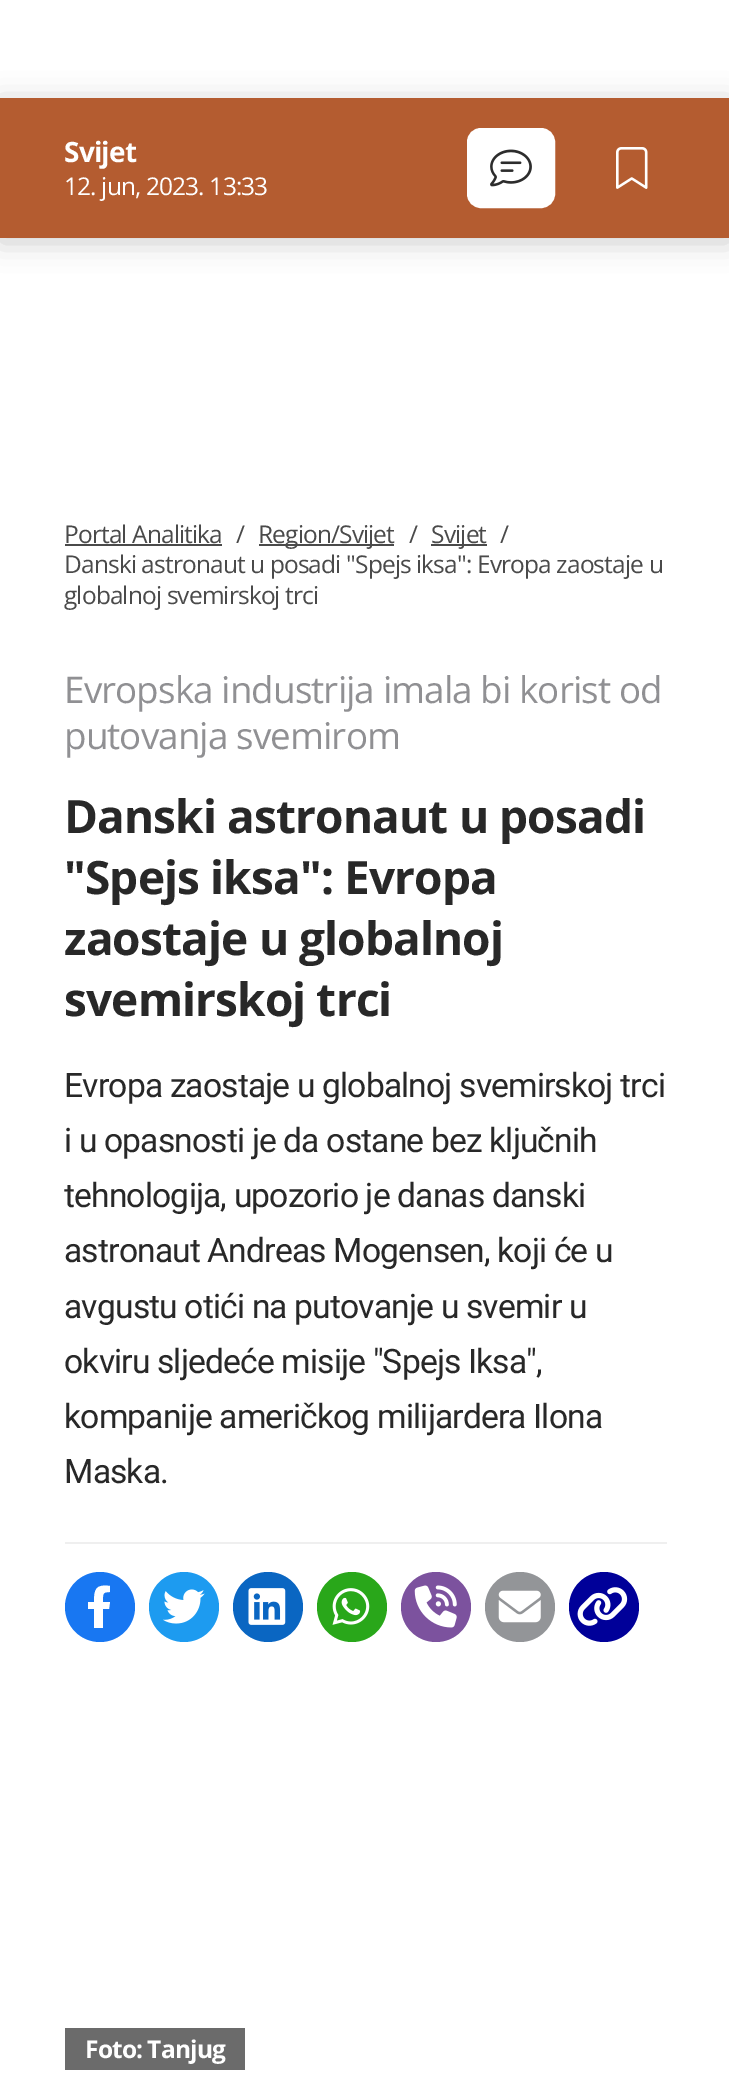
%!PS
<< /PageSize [729 2083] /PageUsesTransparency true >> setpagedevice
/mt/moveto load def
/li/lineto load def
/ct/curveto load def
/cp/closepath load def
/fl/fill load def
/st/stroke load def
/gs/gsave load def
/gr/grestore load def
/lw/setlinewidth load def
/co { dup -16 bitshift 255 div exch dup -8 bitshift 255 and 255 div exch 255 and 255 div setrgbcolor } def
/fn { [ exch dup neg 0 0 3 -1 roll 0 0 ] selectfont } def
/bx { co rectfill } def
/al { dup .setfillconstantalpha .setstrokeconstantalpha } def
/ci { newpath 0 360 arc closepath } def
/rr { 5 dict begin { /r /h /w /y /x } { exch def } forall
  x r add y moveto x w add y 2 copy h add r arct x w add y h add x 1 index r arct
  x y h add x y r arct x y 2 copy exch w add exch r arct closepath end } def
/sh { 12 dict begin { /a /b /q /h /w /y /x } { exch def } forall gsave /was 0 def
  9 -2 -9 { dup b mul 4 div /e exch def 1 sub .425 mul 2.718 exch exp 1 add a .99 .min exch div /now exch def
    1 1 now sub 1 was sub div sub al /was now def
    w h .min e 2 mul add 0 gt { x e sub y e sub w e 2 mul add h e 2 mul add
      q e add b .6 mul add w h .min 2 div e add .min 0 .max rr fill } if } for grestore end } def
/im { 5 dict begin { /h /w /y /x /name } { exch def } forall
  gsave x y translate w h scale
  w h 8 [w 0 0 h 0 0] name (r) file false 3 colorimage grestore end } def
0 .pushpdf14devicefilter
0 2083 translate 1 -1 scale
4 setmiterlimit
0 0 729 2083 16#FFFFFF bx
16#000000 co
0 102 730 140 0 14 .2 sh
0 98 729 140 16#B45C30 bx
16#FFFFFF co
468 129 86 78 13 rr gs fl gr
2 lw
st
(media/1.raw) 490 149 42 38 im
(media/2.raw) 616 147 32 42 im
65 544 157 2 16#4A4A4A bx
259 544 135 2 16#4A4A4A bx
431 544 56 2 16#4A4A4A bx
65 1542 602 2 16#EFEFEF bx
16#1877F2 co
100 1607 35 ci fl
16#FFFFFF co
109 1609 mt 110 1602 li 103 1602 li 103 1594 102 1592 110 1592 ct 110 1586 li 96 1584 94 1589 94 1602 ct 88 1602 li 88 1609 li 94 1609 li 94 1628 li 103 1628 li 103 1609 li cp fl
16#1D9BF0 co
184 1607 35 ci fl
(media/3.raw) 163 1589 42 35 im
16#0A66C2 co
268 1607 35 ci fl
(media/4.raw) 248 1588 38 37 im
16#29A71A co
352 1607 35 ci fl
(media/5.raw) 332 1588 38 37 im
16#7C529E co
436 1607 35 ci fl
(media/6.raw) 414 1585 43 43 im
16#939598 co
520 1607 35 ci fl
(media/7.raw) 498 1590 43 33 im
16#000099 co
604 1607 35 ci fl
(media/8.raw) 577 1587 51 39 im
65 2028 180 42 16#6B6B6B bx
/OpenSans-Bold 28 fn
16#FFFFFF co
64 162 mt -.88 0 (Svijet) ashow
/OpenSans-Regular 24.5 fn
64 195 mt -.88 0 (12. jun, 2023. 13:33) ashow
16#4A4A4A co
64 543 mt -.88 0 (Portal Analitika) ashow
236 543 mt -.88 0 (/) ashow
258 543 mt -.88 0 (Region/Svijet) ashow
409 543 mt -.88 0 (/) ashow
431 543 mt -.88 0 (Svijet) ashow
500 543 mt -.88 0 (/) ashow
64 573 mt -.88 0 (Danski astronaut u posadi "Spejs iksa": Evropa zaostaje u) ashow
64 604 mt -.88 0 (globalnoj svemirskoj trci) ashow
/OpenSans-Regular 36.75 fn
16#909093 co
64 703 mt -.88 0 (Evropska industrija imala bi korist od) ashow
64 749 mt -.88 0 (putovanja svemirom) ashow
/OpenSans-Bold 46 fn
16#282828 co
64 833 mt -.88 0 (Danski astronaut u posadi) ashow
64 894 mt -.88 0 ("Spejs iksa": Evropa) ashow
64 955 mt -.88 0 (zaostaje u globalnoj) ashow
64 1016 mt -.88 0 (svemirskoj trci) ashow
/Roboto-Regular 33.7 fn
64 1097 mt -.88 0 (Evropa zaostaje u globalnoj svemirskoj trci) ashow
64 1152 mt -.88 0 (i u opasnosti je da ostane bez ključnih) ashow
64 1207 mt -.88 0 (tehnologija, upozorio je danas danski) ashow
64 1262 mt -.88 0 (astronaut Andreas Mogensen, koji će u) ashow
64 1318 mt -.88 0 (avgustu otići na putovanje u svemir u) ashow
64 1373 mt -.88 0 (okviru sljedeće misije "Spejs Iksa",) ashow
64 1428 mt -.88 0 (kompanije američkog milijardera Ilona) ashow
64 1483 mt -.88 0 (Maska.) ashow
/OpenSans-Bold 24.5 fn
16#FFFFFF co
85 2058 mt -.88 0 (Foto: Tanjug) ashow
.poppdf14devicefilter showpage
